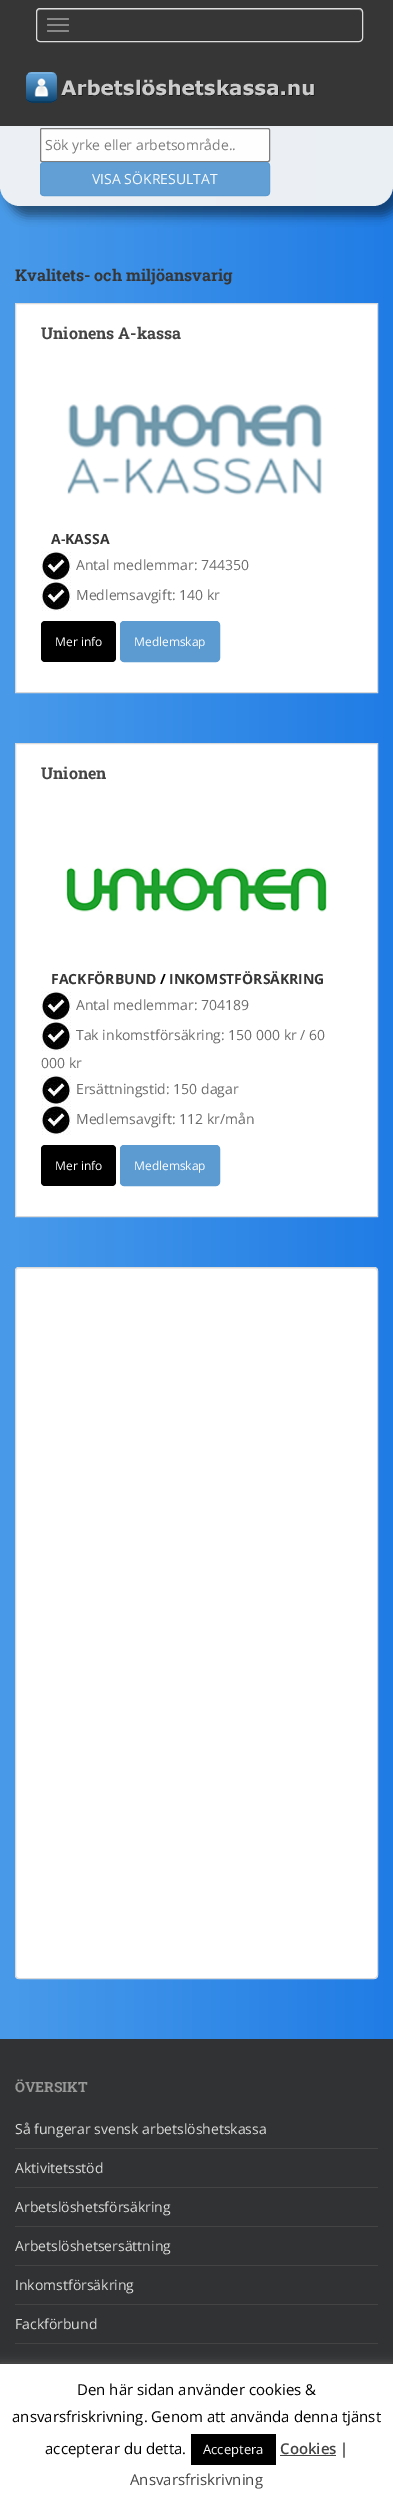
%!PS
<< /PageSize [393 2504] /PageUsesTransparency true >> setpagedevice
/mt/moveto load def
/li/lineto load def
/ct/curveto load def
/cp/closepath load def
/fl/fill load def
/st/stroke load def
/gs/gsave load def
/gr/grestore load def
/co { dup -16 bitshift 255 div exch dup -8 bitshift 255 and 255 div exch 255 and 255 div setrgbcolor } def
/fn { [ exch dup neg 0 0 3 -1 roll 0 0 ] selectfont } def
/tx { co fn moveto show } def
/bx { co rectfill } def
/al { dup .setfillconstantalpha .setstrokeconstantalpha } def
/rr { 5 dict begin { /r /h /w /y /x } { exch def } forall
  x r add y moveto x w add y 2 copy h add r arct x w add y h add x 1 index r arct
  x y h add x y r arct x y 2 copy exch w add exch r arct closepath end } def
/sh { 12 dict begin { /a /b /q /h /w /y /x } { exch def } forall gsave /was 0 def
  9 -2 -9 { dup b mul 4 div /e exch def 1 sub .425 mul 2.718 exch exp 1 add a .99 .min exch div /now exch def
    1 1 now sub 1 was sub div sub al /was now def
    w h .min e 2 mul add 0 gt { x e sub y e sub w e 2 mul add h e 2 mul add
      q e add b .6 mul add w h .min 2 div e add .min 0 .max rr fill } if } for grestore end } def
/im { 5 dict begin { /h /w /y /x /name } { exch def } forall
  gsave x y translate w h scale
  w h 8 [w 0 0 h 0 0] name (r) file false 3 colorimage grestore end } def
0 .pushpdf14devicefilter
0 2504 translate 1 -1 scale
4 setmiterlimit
0 0 393 2504 16#FFFFFF bx
gs 0 126 mt 393 126 li 393 2039 li 0 2039 li cp clip newpath
<< /ShadingType 2 /ColorSpace /DeviceRGB /Coords [0 1913 393 1913] /Extend [true true] /Function << /FunctionType 2 /Domain [0 1] /C0 [.286 .608 .918] /C1 [.125 .486 .898] /N 1 >> >> shfill gr
0 0 393 126 16#363636 bx
16#727272 co
40 10 mt 359 10 li 361 10 362 11 362 13 ct 362 11 361 9 359 9 ct 40 9 li 38 9 37 11 37 13 ct 37 11 38 10 40 10 ct cp fl
16#323232 co
37 37 mt 37 39 38 41 40 41 ct 359 41 li 361 41 362 39 362 37 ct 362 39 361 40 359 40 ct 40 40 li 38 40 37 39 37 37 ct cp fl
16#DDDDDD co
36.5 8.5 326 33 3.5 rr st
16#888888 co
47 18 22 2 1 rr fl
47 24 22 2 1 rr fl
47 30 22 2 1 rr fl
(media/1.raw) 26 72 289 31 im
gs
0 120 mt 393 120 li 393 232 li 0 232 li cp 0 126 mt 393 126 li 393 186 li 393 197 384 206 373 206 ct 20 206 li 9 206 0 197 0 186 ct cp eoclip newpath
16#000000 co
8 136 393 80 20 5 .47 sh
gr
0.95 al
16#F5F5F5 co
0 126 mt 393 126 li 393 186 li 393 197 384 206 373 206 ct 20 206 li 9 206 0 197 0 186 ct cp fl
1 al
16#FEFEFE co
40.5 128.5 229 33 1.5 rr gs fl gr
16#7D7D7D co
st
16#629FD4 co
40 162 230 34 4 rr fl
0.95 al
16#5B9BD2 co
40.5 162.5 229 33 3.5 rr st
1 al
16#FFFFFF co
15.5 303.5 mt 377.5 303.5 li 377.5 692.5 li 15.5 692.5 li cp gs fl gr
16#DADADA co
st
(media/2.raw) 67 404 255 91 im
(media/3.raw) 41 551 30 30 im
(media/3.raw) 41 581 30 30 im
16#000000 co
41 621 75 41 4 rr fl
16#5B9BD2 co
120.5 621.5 99 40 3.5 rr gs fl gr
st
16#FFFFFF co
15.5 743.5 mt 377.5 743.5 li 377.5 1216.5 li 15.5 1216.5 li cp gs fl gr
16#DADADA co
st
(media/4.raw) 66 867 261 45 im
(media/3.raw) 41 991 30 30 im
(media/3.raw) 41 1021 30 30 im
(media/3.raw) 41 1075 30 30 im
(media/3.raw) 41 1105 30 30 im
16#000000 co
41 1145 75 41 4 rr fl
16#5B9BD2 co
120.5 1145.5 99 40 3.5 rr gs fl gr
st
16#FFFFFF co
15 1267 363 712 4 rr fl
16#F2F2F2 co
19 1269 mt 374 1269 li 376 1269 377 1270 377 1272 ct 377 1270 376 1268 374 1268 ct 19 1268 li 17 1269 li 16 1272 li 16 1270 17 1269 19 1269 ct cp fl
16#DADADA co
15.5 1267.5 362 711 3.5 rr st
0 2039 393 325 16#313233 bx
15 2148 363 1 16#444444 bx
15 2187 363 1 16#444444 bx
15 2226 363 1 16#444444 bx
15 2265 363 1 16#444444 bx
15 2304 363 1 16#444444 bx
15 2343 363 1 16#444444 bx
16#ACABAB co
0 2363 393 140 0 5 .3 sh
0 2364 393 140 16#FFFFFF bx
191 2434 85 31 16#000000 bx
280 2455 56 1 16#444444 bx
(Sök yrke eller arbetsområde..) 45 150 /OpenSans-Regular 14 16#7C7C7C tx
(VISA SÖKRESULTAT) 92 184 /OpenSans-Regular 14 16#F7FAFD tx
(Kvalitets- och miljöansvarig) 15 281 /RobotoSlab-Bold 16 16#363636 tx
(Unionens A-kassa) 41 339 /RobotoSlab-Bold 16 16#444444 tx
(A-KASSA) 51 544 /OpenSans-Bold 14 16#363636 tx
(Antal medlemmar: 744350) 76 570 /OpenSans-Regular 14 16#6B6B6B tx
(Medlemsavgift: 140 kr) 76 600 /OpenSans-Regular 14 16#6B6B6B tx
(Mer info) 55 646 /OpenSans-Regular 12 16#FFFFFF tx
(Medlemskap) 134 646 /OpenSans-Regular 12 16#FFFFFF tx
(Unionen) 41 779 /RobotoSlab-Bold 16 16#444444 tx
(FACKFÖRBUND) 51 984 /OpenSans-Bold 14 16#363636 tx
(/) 160 984 /OpenSans-Bold 14 16#000000 tx
(INKOMSTFÖRSÄKRING) 169 984 /OpenSans-Bold 14 16#363636 tx
(Antal medlemmar: 704189) 76 1010 /OpenSans-Regular 14 16#6B6B6B tx
(Tak inkomstförsäkring: 150 000 kr / 60) 76 1040 /OpenSans-Regular 14 16#6B6B6B tx
(000 kr) 41 1068 /OpenSans-Regular 14 16#6B6B6B tx
(Ersättningstid: 150 dagar) 76 1094 /OpenSans-Regular 14 16#6B6B6B tx
(Medlemsavgift: 112 kr/mån) 76 1124 /OpenSans-Regular 14 16#6B6B6B tx
(Mer info) 55 1170 /OpenSans-Regular 12 16#FFFFFF tx
(Medlemskap) 134 1170 /OpenSans-Regular 12 16#FFFFFF tx
(ÖVERSIKT) 15 2092 /RobotoSlab-Bold 14 16#999999 tx
(Så fungerar svensk arbetslöshetskassa) 15 2134 /OpenSans-Regular 14 16#DADADA tx
(Aktivitetsstöd) 15 2173 /OpenSans-Regular 14 16#DADADA tx
(Arbetslöshetsförsäkring) 15 2212 /OpenSans-Regular 14 16#DADADA tx
(Arbetslöshetsersättning) 15 2251 /OpenSans-Regular 14 16#DADADA tx
(Inkomstförsäkring) 15 2290 /OpenSans-Regular 14 16#DADADA tx
(Fackförbund) 15 2329 /OpenSans-Regular 14 16#DADADA tx
(Den här sidan använder cookies &) 77 2395 /OpenSans-Regular 15 16#000000 tx
(ansvarsfriskrivning. Genom att använda denna tjänst) 12 2422 /OpenSans-Regular 15 16#000000 tx
(accepterar du detta.) 45 2454 /OpenSans-Regular 15 16#000000 tx
(Acceptera) 203 2454 /OpenSans-Regular 13 16#FFFFFF tx
(Cookies) 280 2454 /OpenSans-SemiBold 15 16#444444 tx
(|) 340 2454 /OpenSans-Regular 15 16#000000 tx
(Ansvarsfriskrivning) 130 2485 /OpenSans-Regular 15 16#444444 tx
.poppdf14devicefilter showpage
